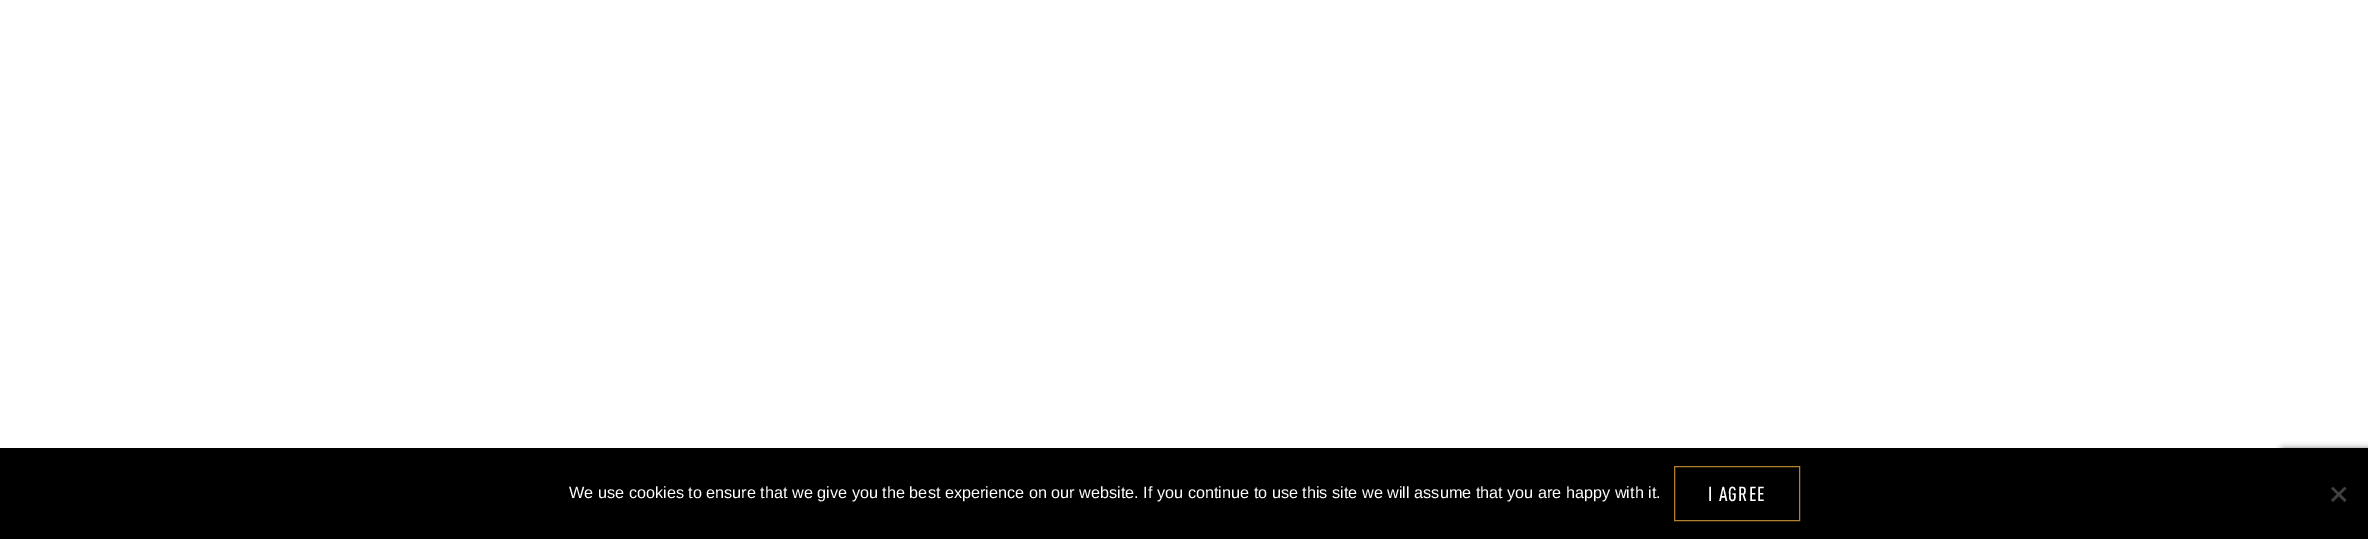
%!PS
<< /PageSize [2368 539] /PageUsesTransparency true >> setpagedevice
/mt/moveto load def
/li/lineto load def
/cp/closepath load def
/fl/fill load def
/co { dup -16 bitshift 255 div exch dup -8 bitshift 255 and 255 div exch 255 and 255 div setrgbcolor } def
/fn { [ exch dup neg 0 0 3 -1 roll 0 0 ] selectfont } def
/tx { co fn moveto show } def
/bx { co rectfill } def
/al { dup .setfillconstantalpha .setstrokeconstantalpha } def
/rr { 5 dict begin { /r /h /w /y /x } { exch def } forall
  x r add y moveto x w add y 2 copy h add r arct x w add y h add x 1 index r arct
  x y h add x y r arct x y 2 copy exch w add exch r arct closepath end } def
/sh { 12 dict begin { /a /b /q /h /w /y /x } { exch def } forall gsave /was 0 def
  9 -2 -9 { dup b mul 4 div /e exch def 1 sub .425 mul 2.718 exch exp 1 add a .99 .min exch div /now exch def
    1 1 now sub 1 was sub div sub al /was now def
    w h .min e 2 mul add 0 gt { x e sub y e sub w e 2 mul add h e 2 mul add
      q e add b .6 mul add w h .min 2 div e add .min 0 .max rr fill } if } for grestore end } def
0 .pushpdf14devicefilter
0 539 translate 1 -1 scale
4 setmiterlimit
0 0 2368 539 16#FFFFFF bx
16#808080 co
2281 448 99 75 2.5 3 1 sh
0 448 2368 91 16#000000 bx
16#B2802C co
1674.5 466.5 125 54 rectstroke
16#404040 co
2344.5 487 mt 2346.5 488.5 li 2333 502 li 2331 500 li cp fl
2331 488.5 mt 2333 487 li 2346.5 500 li 2344.5 502 li cp fl
(We use cookies to ensure that we give you the best experience on our website. If you continue to use this site we will assume that you are happy with it.) 569 498 /LiberationSans-Regular 16.25 16#FFFFFF tx
/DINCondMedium-Medium 20 fn
1708 501 mt 1.25 0 (I AGREE) ashow
.poppdf14devicefilter showpage
